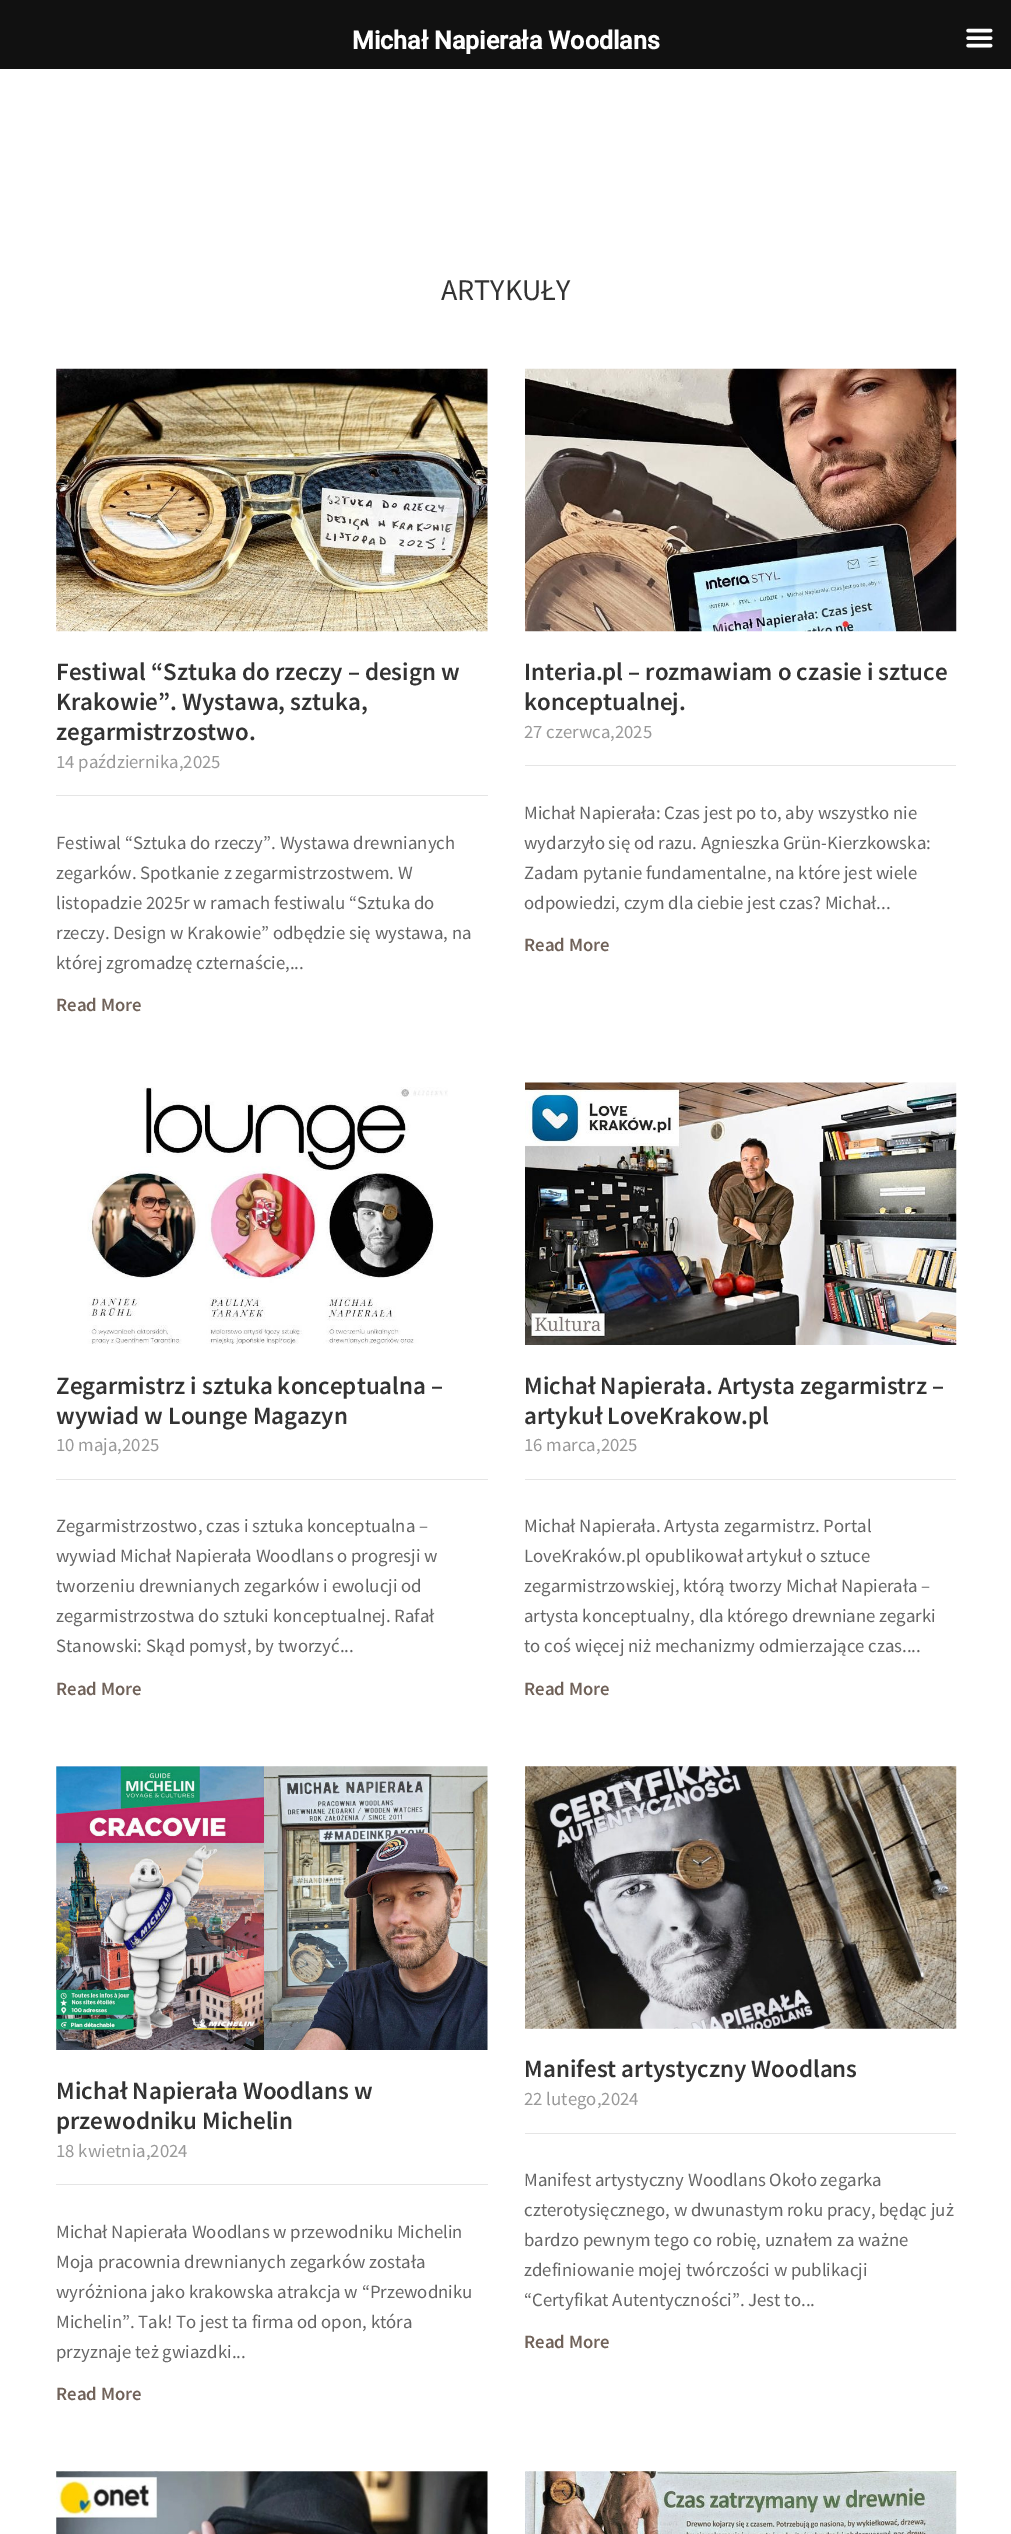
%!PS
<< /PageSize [1011 2534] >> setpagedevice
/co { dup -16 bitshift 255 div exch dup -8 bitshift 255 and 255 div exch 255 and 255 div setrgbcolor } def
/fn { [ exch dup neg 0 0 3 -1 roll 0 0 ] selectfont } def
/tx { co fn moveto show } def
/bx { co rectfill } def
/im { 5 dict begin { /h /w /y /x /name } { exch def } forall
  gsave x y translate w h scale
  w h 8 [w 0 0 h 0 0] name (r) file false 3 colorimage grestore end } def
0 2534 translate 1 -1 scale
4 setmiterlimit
0 0 1011 2534 16#FFFFFF bx
0 0 1011 69 16#111111 bx
(media/1.raw) 966 28 27 20 im
(media/2.raw) 56 368 432 264 im
56 795 432 1 16#E5E5E5 bx
(media/3.raw) 525 368 432 264 im
525 765 431 1 16#E5E5E5 bx
(media/4.raw) 87 1087 361 258 im
56 1479 432 1 16#E5E5E5 bx
(media/5.raw) 525 1082 432 263 im
525 1479 431 1 16#E5E5E5 bx
(media/6.raw) 56 1766 432 284 im
56 2184 432 1 16#E5E5E5 bx
(media/7.raw) 525 1766 432 263 im
525 2133 431 1 16#E5E5E5 bx
(media/8.raw) 56 2471 432 63 im
(media/9.raw) 525 2471 432 63 im
(Michał Napierała Woodlans) 352 49 /Roboto-Bold 25 16#FFFFFF tx
(ARTYKUŁY) 441 300 /SourceSansPro-Regular 30 16#333333 tx
(Festiwal “Sztuka do rzeczy – design w) 56 680 /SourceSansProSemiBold-SemiBold 25 16#333333 tx
(Krakowie”. Wystawa, sztuka,) 56 710 /SourceSansProSemiBold-SemiBold 25 16#333333 tx
(zegarmistrzostwo.) 56 740 /SourceSansProSemiBold-SemiBold 25 16#333333 tx
(14 października,2025) 56 768 /SourceSansPro-Regular 18.75 16#999999 tx
(Festiwal “Sztuka do rzeczy”. Wystawa drewnianych) 56 849 /SourceSansPro-Regular 18.75 16#666666 tx
(zegarków. Spotkanie z zegarmistrzostwem. W) 56 879 /SourceSansPro-Regular 18.75 16#666666 tx
(listopadzie 2025r w ramach festiwalu “Sztuka do) 56 909 /SourceSansPro-Regular 18.75 16#666666 tx
(rzeczy. Design w Krakowie” odbędzie się wystawa, na) 56 939 /SourceSansPro-Regular 18.75 16#666666 tx
(której zgromadzę czternaście,...) 56 969 /SourceSansPro-Regular 18.75 16#666666 tx
(Read More) 56 1011 /SourceSansProSemiBold-SemiBold 18.75 16#706259 tx
(Interia.pl – rozmawiam o czasie i sztuce) 524 680 /SourceSansProSemiBold-SemiBold 25 16#333333 tx
(konceptualnej.) 524 710 /SourceSansProSemiBold-SemiBold 25 16#333333 tx
(27 czerwca,2025) 524 738 /SourceSansPro-Regular 18.75 16#999999 tx
(Michał Napierała: Czas jest po to, aby wszystko nie) 524 819 /SourceSansPro-Regular 18.75 16#666666 tx
(wydarzyło się od razu. Agnieszka Grün-Kierzkowska:) 524 849 /SourceSansPro-Regular 18.75 16#666666 tx
(Zadam pytanie fundamentalne, na które jest wiele) 524 879 /SourceSansPro-Regular 18.75 16#666666 tx
(odpowiedzi, czym dla ciebie jest czas? Michał...) 524 909 /SourceSansPro-Regular 18.75 16#666666 tx
(Read More) 524 951 /SourceSansProSemiBold-SemiBold 18.75 16#706259 tx
(Zegarmistrz i sztuka konceptualna –) 56 1394 /SourceSansProSemiBold-SemiBold 25 16#333333 tx
(wywiad w Lounge Magazyn) 56 1424 /SourceSansProSemiBold-SemiBold 25 16#333333 tx
(10 maja,2025) 56 1451 /SourceSansPro-Regular 18.75 16#999999 tx
(Zegarmistrzostwo, czas i sztuka konceptualna –) 56 1532 /SourceSansPro-Regular 18.75 16#666666 tx
(wywiad Michał Napierała Woodlans o progresji w) 56 1562 /SourceSansPro-Regular 18.75 16#666666 tx
(tworzeniu drewnianych zegarków i ewolucji od) 56 1592 /SourceSansPro-Regular 18.75 16#666666 tx
(zegarmistrzostwa do sztuki konceptualnej. Rafał) 56 1622 /SourceSansPro-Regular 18.75 16#666666 tx
(Stanowski: Skąd pomysł, by tworzyć...) 56 1652 /SourceSansPro-Regular 18.75 16#666666 tx
(Read More) 56 1695 /SourceSansProSemiBold-SemiBold 18.75 16#706259 tx
(Michał Napierała. Artysta zegarmistrz –) 524 1394 /SourceSansProSemiBold-SemiBold 25 16#333333 tx
(artykuł LoveKrakow.pl) 524 1424 /SourceSansProSemiBold-SemiBold 25 16#333333 tx
(16 marca,2025) 524 1451 /SourceSansPro-Regular 18.75 16#999999 tx
(Michał Napierała. Artysta zegarmistrz. Portal) 524 1532 /SourceSansPro-Regular 18.75 16#666666 tx
(LoveKraków.pl opublikował artykuł o sztuce) 524 1562 /SourceSansPro-Regular 18.75 16#666666 tx
(zegarmistrzowskiej, którą tworzy Michał Napierała –) 524 1592 /SourceSansPro-Regular 18.75 16#666666 tx
(artysta konceptualny, dla którego drewniane zegarki) 524 1622 /SourceSansPro-Regular 18.75 16#666666 tx
(to coś więcej niż mechanizmy odmierzające czas....) 524 1652 /SourceSansPro-Regular 18.75 16#666666 tx
(Read More) 524 1695 /SourceSansProSemiBold-SemiBold 18.75 16#706259 tx
(Michał Napierała Woodlans w) 56 2099 /SourceSansProSemiBold-SemiBold 25 16#333333 tx
(przewodniku Michelin) 56 2129 /SourceSansProSemiBold-SemiBold 25 16#333333 tx
(18 kwietnia,2024) 56 2157 /SourceSansPro-Regular 18.75 16#999999 tx
(Michał Napierała Woodlans w przewodniku Michelin) 56 2238 /SourceSansPro-Regular 18.75 16#666666 tx
(Moja pracownia drewnianych zegarków została) 56 2268 /SourceSansPro-Regular 18.75 16#666666 tx
(wyróżniona jako krakowska atrakcja w “Przewodniku) 56 2298 /SourceSansPro-Regular 18.75 16#666666 tx
(Michelin”. Tak! To jest ta firma od opon, która) 56 2328 /SourceSansPro-Regular 18.75 16#666666 tx
(przyznaje też gwiazdki...) 56 2358 /SourceSansPro-Regular 18.75 16#666666 tx
(Read More) 56 2400 /SourceSansProSemiBold-SemiBold 18.75 16#706259 tx
(Manifest artystyczny Woodlans) 524 2077 /SourceSansProSemiBold-SemiBold 25 16#333333 tx
(22 lutego,2024) 524 2105 /SourceSansPro-Regular 18.75 16#999999 tx
(Manifest artystyczny Woodlans Około zegarka) 524 2186 /SourceSansPro-Regular 18.75 16#666666 tx
(czterotysięcznego, w dwunastym roku pracy, będąc już) 524 2216 /SourceSansPro-Regular 18.75 16#666666 tx
(bardzo pewnym tego co robię, uznałem za ważne) 524 2246 /SourceSansPro-Regular 18.75 16#666666 tx
(zdefiniowanie mojej twórczości w publikacji) 524 2276 /SourceSansPro-Regular 18.75 16#666666 tx
(“Certyfikat Autentyczności”. Jest to...) 524 2306 /SourceSansPro-Regular 18.75 16#666666 tx
(Read More) 524 2348 /SourceSansProSemiBold-SemiBold 18.75 16#706259 tx
showpage
